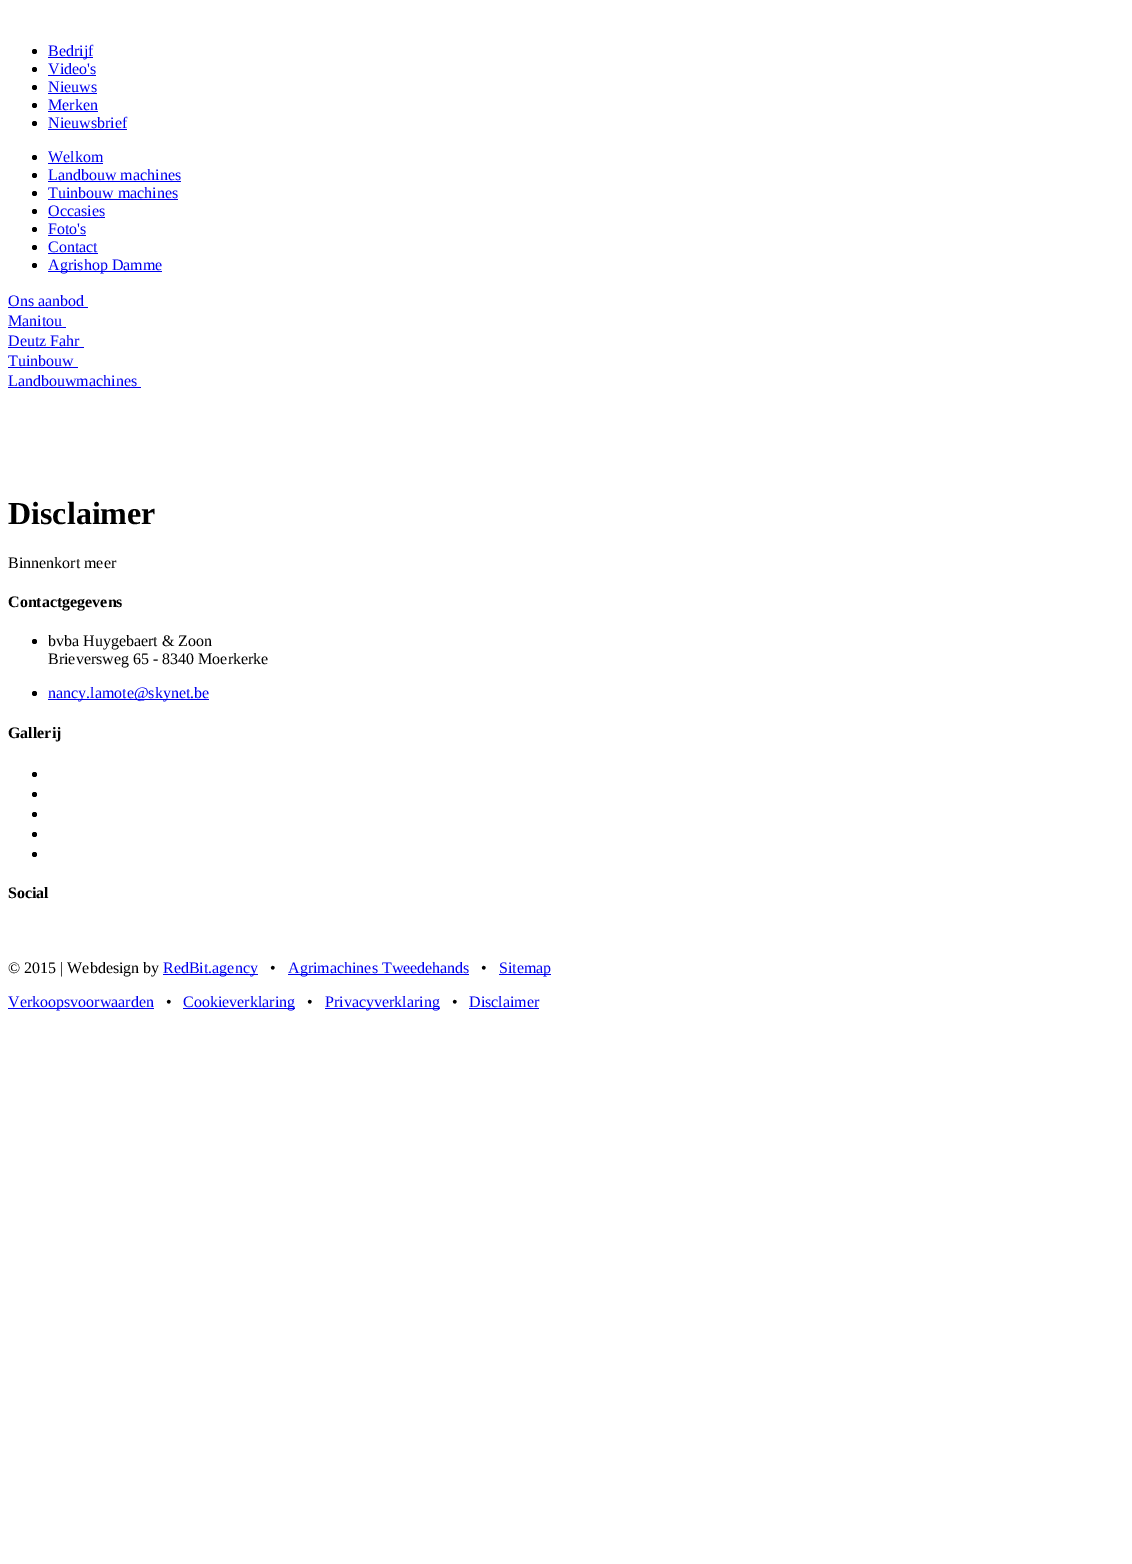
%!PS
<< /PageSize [1132 1564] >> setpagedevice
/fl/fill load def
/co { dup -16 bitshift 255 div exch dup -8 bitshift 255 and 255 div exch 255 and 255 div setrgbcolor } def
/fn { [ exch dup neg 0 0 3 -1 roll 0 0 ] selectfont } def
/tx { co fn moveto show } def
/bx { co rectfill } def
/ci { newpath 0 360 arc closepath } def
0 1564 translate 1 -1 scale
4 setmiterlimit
0 0 1132 1564 16#FFFFFF bx
16#000000 co
34.5 51.5 2.5 ci fl
48 57 45 1 16#0000EE bx
16#000000 co
34.5 69.5 2.5 ci fl
48 75 48 1 16#0000EE bx
16#000000 co
34.5 87.5 2.5 ci fl
48 93 49 1 16#0000EE bx
16#000000 co
34.5 105.5 2.5 ci fl
48 111 50 1 16#0000EE bx
16#000000 co
34.5 123.5 2.5 ci fl
48 129 79 1 16#0000EE bx
16#000000 co
34.5 157.5 2.5 ci fl
48 163 55 1 16#0000EE bx
16#000000 co
34.5 175.5 2.5 ci fl
48 181 133 1 16#0000EE bx
16#000000 co
34.5 193.5 2.5 ci fl
48 199 130 1 16#0000EE bx
16#000000 co
34.5 211.5 2.5 ci fl
48 217 57 1 16#0000EE bx
16#000000 co
34.5 229.5 2.5 ci fl
48 235 38 1 16#0000EE bx
16#000000 co
34.5 247.5 2.5 ci fl
48 253 50 1 16#0000EE bx
16#000000 co
34.5 265.5 2.5 ci fl
48 271 114 1 16#0000EE bx
8 307 80 1 16#0000EE bx
8 327 58 1 16#0000EE bx
8 347 76 1 16#0000EE bx
8 367 70 1 16#0000EE bx
8 387 133 1 16#0000EE bx
16#000000 co
34.5 641.5 2.5 ci fl
34.5 693.5 2.5 ci fl
48 699 161 1 16#0000EE bx
16#000000 co
34.5 774.5 2.5 ci fl
34.5 794.5 2.5 ci fl
34.5 814.5 2.5 ci fl
34.5 834.5 2.5 ci fl
34.5 854.5 2.5 ci fl
163 974 95 1 16#0000EE bx
288 974 181 1 16#0000EE bx
499 974 52 1 16#0000EE bx
8 1008 146 1 16#0000EE bx
183 1008 112 1 16#0000EE bx
325 1008 115 1 16#0000EE bx
469 1008 70 1 16#0000EE bx
(Bedrijf) 48 56 /LiberationSerif-Regular 16 16#0000EE tx
(Video's) 48 74 /LiberationSerif-Regular 16 16#0000EE tx
(Nieuws) 48 92 /LiberationSerif-Regular 16 16#0000EE tx
(Merken) 48 110 /LiberationSerif-Regular 16 16#0000EE tx
(Nieuwsbrief) 48 128 /LiberationSerif-Regular 16 16#0000EE tx
(Welkom) 48 162 /LiberationSerif-Regular 16 16#0000EE tx
(Landbouw machines) 48 180 /LiberationSerif-Regular 16 16#0000EE tx
(Tuinbouw machines) 48 198 /LiberationSerif-Regular 16 16#0000EE tx
(Occasies) 48 216 /LiberationSerif-Regular 16 16#0000EE tx
(Foto's) 48 234 /LiberationSerif-Regular 16 16#0000EE tx
(Contact) 48 252 /LiberationSerif-Regular 16 16#0000EE tx
(Agrishop Damme) 48 270 /LiberationSerif-Regular 16 16#0000EE tx
(Ons aanbod) 8 306 /LiberationSerif-Regular 16 16#0000EE tx
(Manitou) 8 326 /LiberationSerif-Regular 16 16#0000EE tx
(Deutz Fahr) 8 346 /LiberationSerif-Regular 16 16#0000EE tx
(Tuinbouw) 8 366 /LiberationSerif-Regular 16 16#0000EE tx
(Landbouwmachines) 8 386 /LiberationSerif-Regular 16 16#0000EE tx
(Disclaimer) 8 524 /LiberationSerif-Bold 32 16#000000 tx
(Binnenkort meer) 8 568 /LiberationSerif-Regular 16 16#000000 tx
(Contactgegevens) 8 607 /LiberationSerif-Bold 16 16#000000 tx
(bvba Huygebaert & Zoon) 48 646 /LiberationSerif-Regular 16 16#000000 tx
(Brieversweg 65 - 8340 Moerkerke) 48 664 /LiberationSerif-Regular 16 16#000000 tx
(nancy.lamote@skynet.be) 48 698 /LiberationSerif-Regular 16 16#0000EE tx
(Gallerij) 8 738 /LiberationSerif-Bold 16 16#000000 tx
(Social) 8 898 /LiberationSerif-Bold 16 16#000000 tx
(© 2015 | Webdesign by) 8 973 /LiberationSerif-Regular 16 16#000000 tx
(RedBit.agency) 163 973 /LiberationSerif-Regular 16 16#0000EE tx
(•) 270 973 /LiberationSerif-Regular 16 16#000000 tx
(Agrimachines Tweedehands) 288 973 /LiberationSerif-Regular 16 16#0000EE tx
(•) 481 973 /LiberationSerif-Regular 16 16#000000 tx
(Sitemap) 499 973 /LiberationSerif-Regular 16 16#0000EE tx
(Verkoopsvoorwaarden) 8 1007 /LiberationSerif-Regular 16 16#0000EE tx
(•) 166 1007 /LiberationSerif-Regular 16 16#000000 tx
(Cookieverklaring) 183 1007 /LiberationSerif-Regular 16 16#0000EE tx
(•) 307 1007 /LiberationSerif-Regular 16 16#000000 tx
(Privacyverklaring) 325 1007 /LiberationSerif-Regular 16 16#0000EE tx
(•) 452 1007 /LiberationSerif-Regular 16 16#000000 tx
(Disclaimer) 469 1007 /LiberationSerif-Regular 16 16#0000EE tx
showpage
